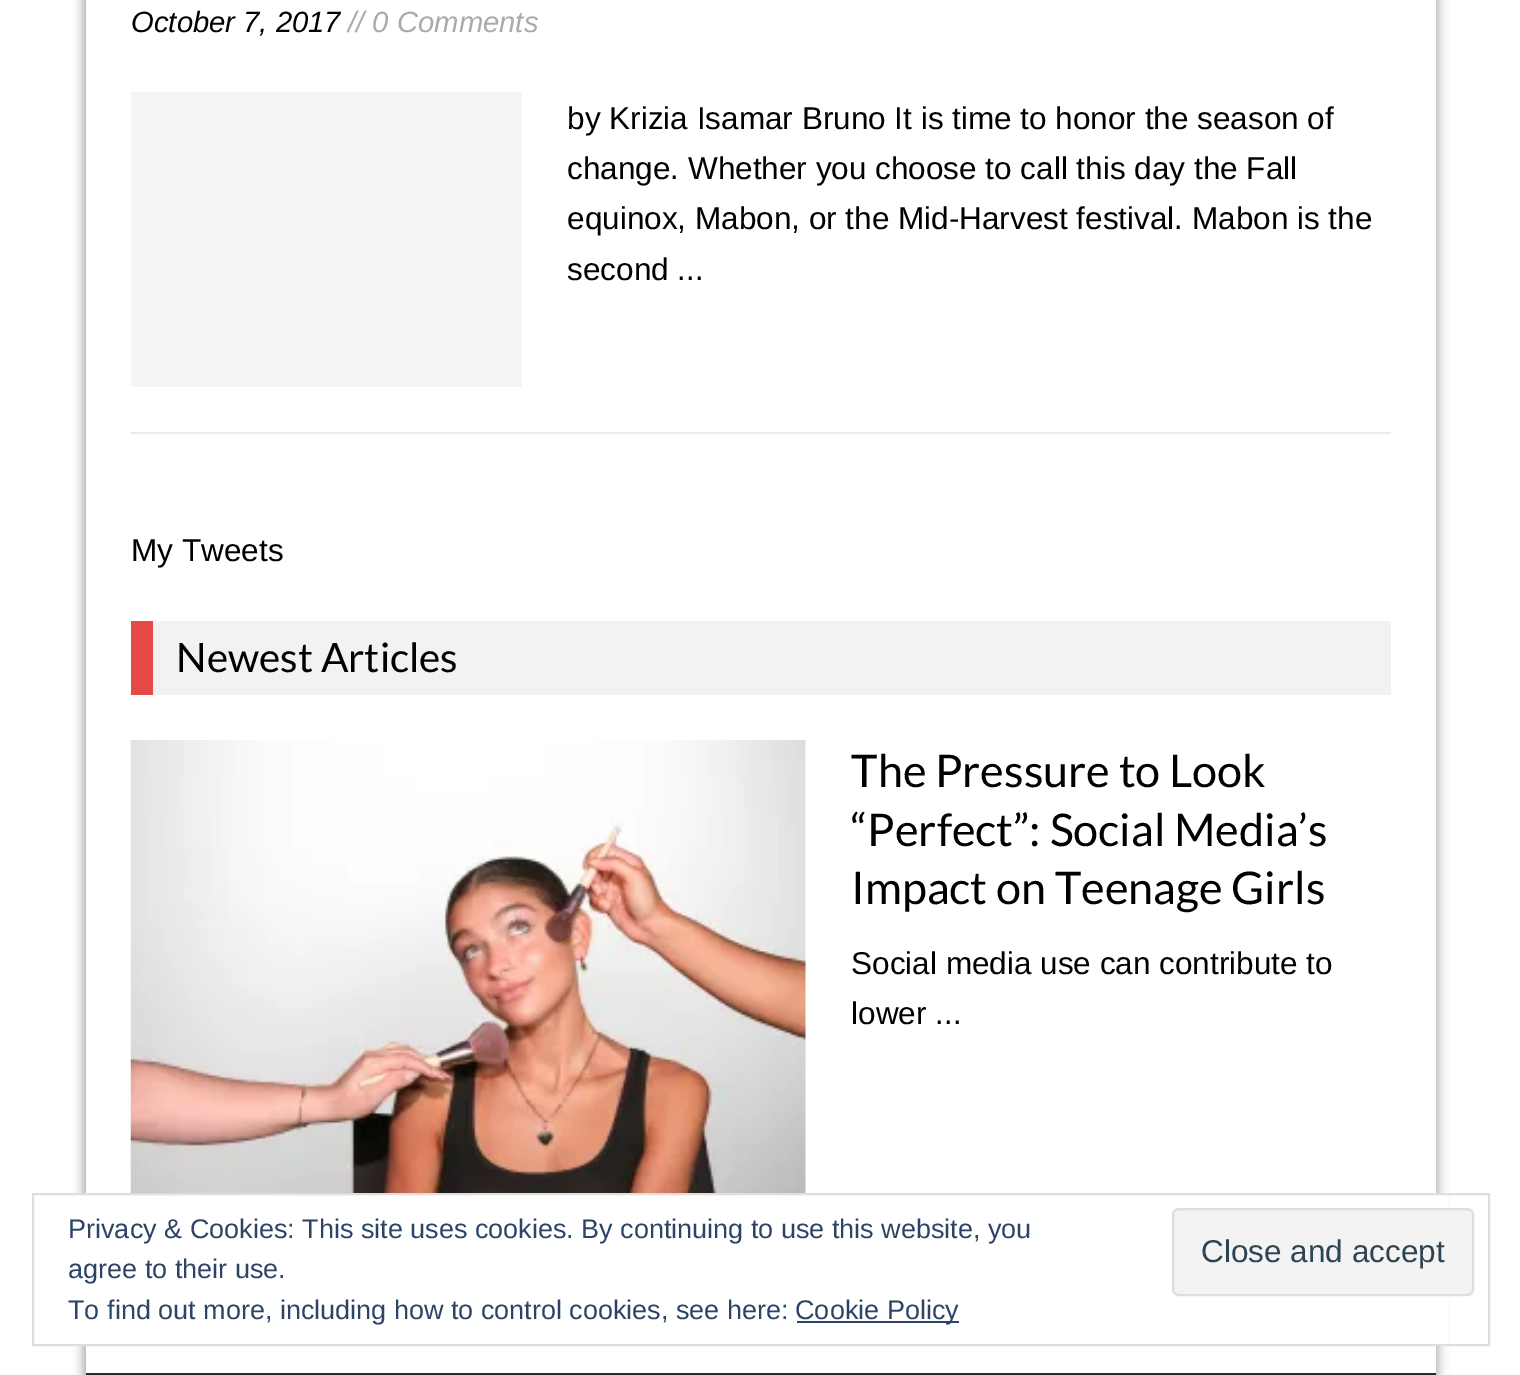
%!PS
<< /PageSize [1520 1375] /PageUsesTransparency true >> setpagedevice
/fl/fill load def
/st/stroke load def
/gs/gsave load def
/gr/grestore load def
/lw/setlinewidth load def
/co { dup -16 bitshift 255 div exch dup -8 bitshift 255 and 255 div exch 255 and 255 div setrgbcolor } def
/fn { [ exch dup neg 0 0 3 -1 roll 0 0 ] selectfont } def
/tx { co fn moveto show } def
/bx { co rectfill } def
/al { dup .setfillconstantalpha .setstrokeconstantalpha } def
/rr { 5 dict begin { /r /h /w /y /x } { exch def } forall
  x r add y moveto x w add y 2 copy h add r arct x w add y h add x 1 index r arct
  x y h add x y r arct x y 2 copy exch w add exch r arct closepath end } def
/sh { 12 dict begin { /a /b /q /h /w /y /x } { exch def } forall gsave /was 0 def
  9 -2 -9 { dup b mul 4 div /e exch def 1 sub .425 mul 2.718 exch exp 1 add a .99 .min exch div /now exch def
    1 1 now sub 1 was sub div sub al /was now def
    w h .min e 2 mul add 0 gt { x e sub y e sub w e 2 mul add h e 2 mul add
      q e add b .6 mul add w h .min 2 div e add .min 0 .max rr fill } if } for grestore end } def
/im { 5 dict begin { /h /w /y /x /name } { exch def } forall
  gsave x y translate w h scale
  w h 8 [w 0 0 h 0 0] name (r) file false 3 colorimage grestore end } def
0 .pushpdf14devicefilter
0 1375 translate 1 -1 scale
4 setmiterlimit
0 0 1520 1375 16#FFFFFF bx
16#A8A8A8 co
83 -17 1355 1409 0 5.5 1 sh
86 0 1350 1373 16#FFFFFF bx
131 432 1260 2 16#EBEBEB bx
131 92 391 295 16#F5F5F5 bx
153 621 1238 74 16#F2F2F2 bx
131 621 22 74 16#E64946 bx
(media/1.raw) 130 740 676 453 im
86 1373 1350 2 16#2A2A2A bx
73 1195 1375 149 16#FFFFFF bx
16#DEDEDE co
2 lw
33 1194 1456 151 rectstroke
16#F3F3F3 co
1173 1209 300 86 6 rr gs fl gr
16#DEDEDE co
st
797 1321 162 2 16#2E4467 bx
(October 7, 2017) 131 32 /Arimo-Italic 29.25 16#000000 tx
(// 0 Comments) 348 32 /Arimo-Italic 29.25 16#AAAAAA tx
(by Krizia Isamar Bruno It is time to honor the season of) 567 129 /Arimo-Regular 31.5 16#000000 tx
(change. Whether you choose to call this day the Fall) 567 179 /Arimo-Regular 31.5 16#000000 tx
(equinox, Mabon, or the Mid-Harvest festival. Mabon is the) 567 229 /Arimo-Regular 31.5 16#000000 tx
(second ...) 567 280 /Arimo-Regular 31.5 16#000000 tx
(My Tweets) 131 561 /Arimo-Regular 31.5 16#000000 tx
(Newest Articles) 176 672 /Lato-Regular 40.5 16#000000 tx
(The Pressure to Look) 851 787 /Lato-Regular 45 16#000000 tx
(“Perfect”: Social Media’s) 851 846 /Lato-Regular 45 16#000000 tx
(Impact on Teenage Girls) 851 904 /Lato-Regular 45 16#000000 tx
(Social media use can contribute to) 851 974 /Arimo-Regular 31.5 16#000000 tx
(lower ...) 851 1024 /Arimo-Regular 31.5 16#000000 tx
(Privacy & Cookies: This site uses cookies. By continuing to use this website, you) 68 1238 /Arimo-Regular 27 16#2E4467 tx
(agree to their use.) 68 1278 /Arimo-Regular 27 16#2E4467 tx
(Close and accept) 1201 1262 /Arimo-Regular 31.5 16#2E4453 tx
(To find out more, including how to control cookies, see here:) 68 1319 /Arimo-Regular 27 16#2E4467 tx
(Cookie Policy) 795 1319 /Arimo-Regular 27 16#2E4467 tx
.poppdf14devicefilter showpage
